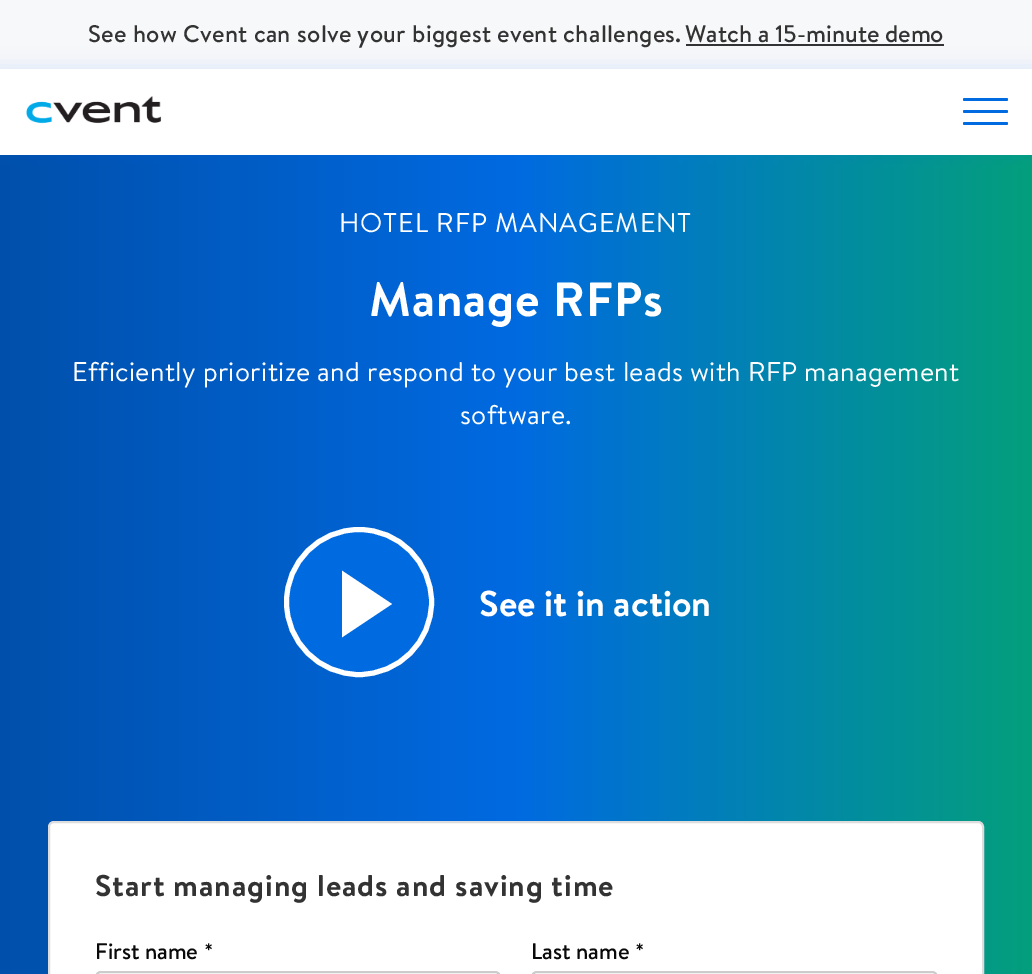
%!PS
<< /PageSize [1032 974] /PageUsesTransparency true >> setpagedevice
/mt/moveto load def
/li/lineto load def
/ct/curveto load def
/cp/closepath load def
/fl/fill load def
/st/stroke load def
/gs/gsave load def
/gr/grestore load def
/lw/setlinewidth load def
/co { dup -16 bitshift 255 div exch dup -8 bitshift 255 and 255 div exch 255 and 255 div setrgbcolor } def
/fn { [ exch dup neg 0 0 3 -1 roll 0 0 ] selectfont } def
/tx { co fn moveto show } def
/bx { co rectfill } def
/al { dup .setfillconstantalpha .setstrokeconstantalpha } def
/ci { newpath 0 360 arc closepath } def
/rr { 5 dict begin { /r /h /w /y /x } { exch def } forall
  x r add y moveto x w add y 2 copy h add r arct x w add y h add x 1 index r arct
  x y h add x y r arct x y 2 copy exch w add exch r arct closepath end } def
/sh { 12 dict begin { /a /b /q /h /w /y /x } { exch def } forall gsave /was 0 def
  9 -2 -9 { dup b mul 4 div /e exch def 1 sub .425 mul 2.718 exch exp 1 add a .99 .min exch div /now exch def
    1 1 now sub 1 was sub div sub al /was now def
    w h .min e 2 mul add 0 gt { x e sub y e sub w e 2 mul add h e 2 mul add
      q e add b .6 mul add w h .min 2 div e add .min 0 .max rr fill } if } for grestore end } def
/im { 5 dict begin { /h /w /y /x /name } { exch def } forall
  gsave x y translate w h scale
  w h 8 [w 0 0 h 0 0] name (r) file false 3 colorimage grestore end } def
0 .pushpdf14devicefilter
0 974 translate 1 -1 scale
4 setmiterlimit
0 0 1032 974 16#F7F8F9 bx
686 44 258 2 16#333333 bx
gs 0 155 mt 1032 155 li 1032 974 li 0 974 li cp clip newpath
<< /ShadingType 2 /ColorSpace /DeviceRGB /Coords [0 946 1032 946] /Extend [true true] /Function << /FunctionType 3 /Domain [0 1] /Functions [<< /FunctionType 2 /Domain [0 1] /C0 [0 .314 .671] /C1 [0 .416 .882] /N 1 >> << /FunctionType 2 /Domain [0 1] /C0 [0 .416 .882] /C1 [.016 .624 .486] /N 1 >>] /Bounds [.5] /Encode [0 1 0 1] >> >> shfill gr
16#006AE1 co
-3 66 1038 92 0 9 .1 sh
0 69 1032 86 16#FFFFFF bx
(media/1.raw) 26 96 136 28 im
16#006AE1 co
963 110 45 3 1.5 rr fl
963 98 45 3 1.5 rr fl
963 122 45 3 1.5 rr fl
359 602 72.5 ci gs fl gr
16#FFFFFF co
5 lw
st
gs
342 567 50 74 rectclip
311 550 mt 392 604 li 314 656 li 281 629 279 579 311 550 ct cp fl
gr
49 822 934 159 5 rr gs fl gr
16#DDDDDD co
2 lw
st
16#CCCCCC co
96 972 404 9 5 rr st
532 972 405 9 5 rr st
/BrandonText-Medium 24 fn
16#333333 co
88 42 mt .3 0 (See how Cvent can solve your biggest event challenges.) ashow
(Watch a 15-minute demo) 685 42 /BrandonText-Medium 24 16#333333 tx
/BrandonText-Regular 27 fn
16#FFFFFF co
339 232 mt .9 0 (HOTEL RFP MANAGEMENT) ashow
/BrandonText-Bold 48 fn
369 316 mt .9 0 (Manage RFPs) ashow
/BrandonText-Regular 27 fn
72 381 mt .3 0 (Efficiently prioritize and respond to your best leads with RFP management) ashow
460 424 mt .3 0 (software.) ashow
(See it in action) 479 616 /BrandonText-Bold 36 16#FFFFFF tx
/BrandonText-Bold 30 fn
16#333333 co
95 896 mt .9 0 (Start managing leads and saving time) ashow
(First name *) 95 959 /BrandonText-Medium 22.5 16#0A0A0A tx
(Last name *) 531 959 /BrandonText-Medium 22.5 16#0A0A0A tx
.poppdf14devicefilter showpage
